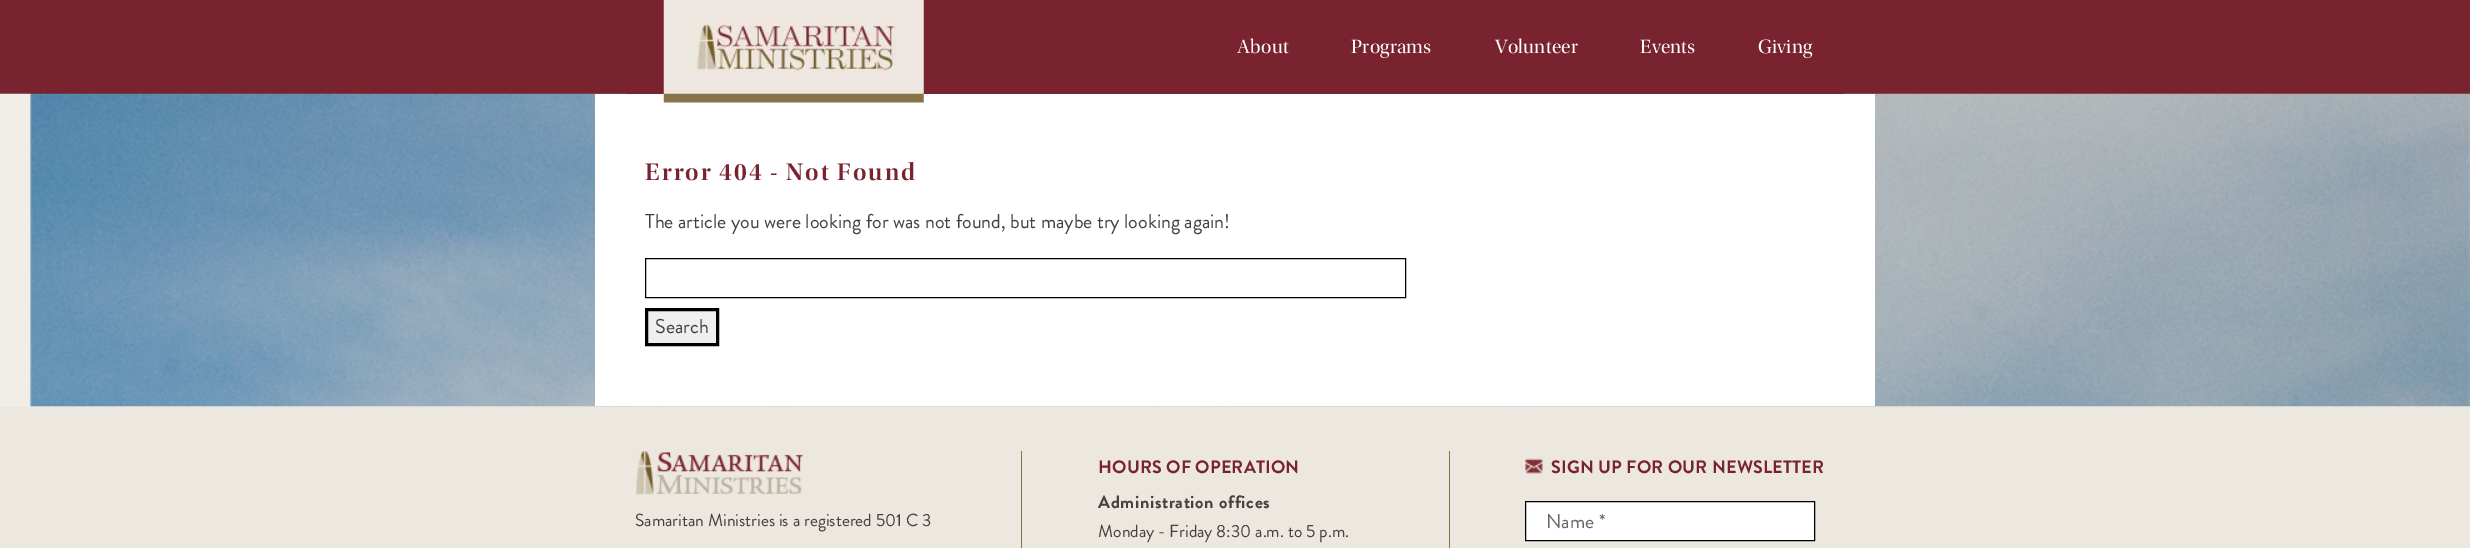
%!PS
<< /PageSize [2470 548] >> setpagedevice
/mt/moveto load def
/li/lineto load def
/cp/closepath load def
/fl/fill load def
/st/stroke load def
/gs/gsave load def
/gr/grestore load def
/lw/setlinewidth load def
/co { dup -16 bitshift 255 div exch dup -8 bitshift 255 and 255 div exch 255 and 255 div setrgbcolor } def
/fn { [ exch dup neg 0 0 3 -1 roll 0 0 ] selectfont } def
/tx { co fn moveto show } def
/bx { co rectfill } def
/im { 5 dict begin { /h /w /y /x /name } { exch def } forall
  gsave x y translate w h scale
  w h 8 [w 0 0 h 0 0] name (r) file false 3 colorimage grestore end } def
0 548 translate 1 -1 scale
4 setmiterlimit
0 0 2470 548 16#ECE7DF bx
0 0 2470 94 16#79232E bx
(media/2.raw) 0 93 2470 314 im
626 93 1218 1 16#79232E bx
595 94 1280 312 16#FFFFFF bx
(media/1.raw) 663 0 261 103 im
16#000000 co
645.5 258.5 760 39 rectstroke
16#EFEFEF co
646.5 309.5 mt 717.5 309.5 li 717.5 344.5 li 646.5 344.5 li cp gs fl gr
16#000000 co
3 lw
st
(media/3.raw) 636 451 167 44 im
1021 451 1 97 16#877349 bx
1449 451 1 97 16#877349 bx
(media/4.raw) 1525 458 18 16 im
16#FFFFFF co
1525.5 501.5 mt 1814.5 501.5 li 1814.5 540.5 li 1525.5 540.5 li cp gs fl gr
16#000000 co
1 lw
st
/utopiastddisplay-Regular 20 fn
16#FFFFFF co
1237 53 mt .2 0 (About) ashow
1351 53 mt .2 0 (Programs) ashow
1495 53 mt .2 0 (Volunteer) ashow
1640 53 mt .2 0 (Events) ashow
1758 53 mt .2 0 (Giving) ashow
/utopiastddisplay-SemiBold 25 fn
16#79232E co
645 180 mt 2 0 (Error 404 - Not Found) ashow
(The article you were looking for was not found, but maybe try looking again!) 645 228 /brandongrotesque-Regular 20 16#464041 tx
(Search) 655 333 /brandongrotesque-Regular 20 16#464041 tx
(Samaritan Ministries is a registered 501 C 3) 635 526 /brandongrotesque-Regular 17.5 16#464041 tx
/brandongrotesque-Medium 18 fn
16#79232E co
1098 473 mt .2 0 (HOURS OF OPERATION) ashow
16#464041 co
1098 508 mt .6 0 (Administration offices) ashow
(Monday - Friday 8:30 a.m. to 5 p.m.) 1098 537 /brandongrotesque-Regular 17.5 16#464041 tx
/brandongrotesque-Medium 18 fn
16#79232E co
1551 473 mt .2 0 (SIGN UP FOR OUR NEWSLETTER) ashow
(Name *) 1546 528 /brandongrotesque-Regular 20 16#666666 tx
showpage
